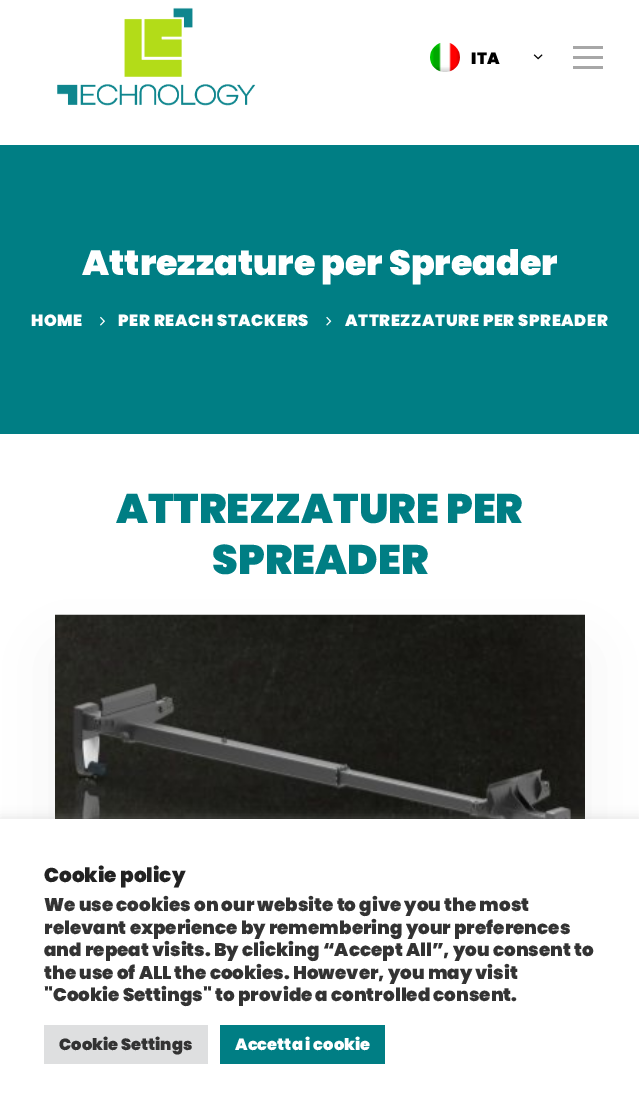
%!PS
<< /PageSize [639 1113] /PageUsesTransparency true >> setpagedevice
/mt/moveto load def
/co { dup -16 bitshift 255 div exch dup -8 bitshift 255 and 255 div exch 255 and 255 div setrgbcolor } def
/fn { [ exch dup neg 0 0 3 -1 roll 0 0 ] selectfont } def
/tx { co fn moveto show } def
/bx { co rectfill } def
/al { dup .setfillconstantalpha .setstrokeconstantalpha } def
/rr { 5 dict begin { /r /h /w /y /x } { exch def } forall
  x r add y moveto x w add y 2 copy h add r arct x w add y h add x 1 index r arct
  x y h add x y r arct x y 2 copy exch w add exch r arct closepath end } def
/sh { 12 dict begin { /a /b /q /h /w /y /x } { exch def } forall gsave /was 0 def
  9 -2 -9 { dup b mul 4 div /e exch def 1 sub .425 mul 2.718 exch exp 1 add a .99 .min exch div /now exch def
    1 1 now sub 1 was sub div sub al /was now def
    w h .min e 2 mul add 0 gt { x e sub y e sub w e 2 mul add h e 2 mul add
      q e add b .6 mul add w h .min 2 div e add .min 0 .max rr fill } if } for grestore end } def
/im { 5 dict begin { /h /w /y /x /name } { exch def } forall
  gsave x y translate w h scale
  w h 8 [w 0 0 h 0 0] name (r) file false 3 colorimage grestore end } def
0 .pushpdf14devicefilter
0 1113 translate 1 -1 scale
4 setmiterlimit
0 0 639 1113 16#FFFFFF bx
(media/1.raw) 57 7 199 99 im
(media/2.raw) 430 42 30 30 im
(media/3.raw) 533 54 10 6 im
573 56 30 3 16#A7A7A7 bx
573 46 30 3 16#A7A7A7 bx
573 66 30 3 16#A7A7A7 bx
0 145 639 289 16#007E84 bx
(media/4.raw) 100 316 5 10 im
(media/5.raw) 326 316 6 10 im
16#000000 co
56 653 528 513 0 31 .06 sh
(media/6.raw) 55 614 530 205 im
16#ACABAB co
0 818 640 295 0 6 .3 sh
0 819 639 294 16#FFFFFF bx
44 1025 164 39 16#DEDFE0 bx
220 1025 165 39 16#007E84 bx
/Poppins-Black 16.25 fn
16#000000 co
471 64 mt .6 0 (ITA) ashow
(Attrezzature per Spreader) 82 275 /Poppins-Black 35 16#FFFFFF tx
/Poppins-Black 16.25 fn
31 326 mt .6 0 (HOME) ashow
118 326 mt .6 0 (PER REACH STACKERS) ashow
345 326 mt .6 0 (ATTREZZATURE PER SPREADER) ashow
(ATTREZZATURE PER) 116 523 /Poppins-Black 41.25 16#007E84 tx
(SPREADER) 212 574 /Poppins-Black 41.25 16#007E84 tx
(Cookie policy) 44 882 /Poppins-Black 20 16#222222 tx
(We use cookies on our website to give you the most) 44 911 /Poppins-Black 18.3 16#333333 tx
(relevant experience by remembering your preferences) 44 934 /Poppins-Black 18.3 16#333333 tx
(and repeat visits. By clicking “Accept All”, you consent to) 44 956 /Poppins-Black 18.3 16#333333 tx
(the use of ALL the cookies. However, you may visit) 44 979 /Poppins-Black 18.3 16#333333 tx
("Cookie Settings" to provide a controlled consent.) 44 1001 /Poppins-Black 18.3 16#333333 tx
(Cookie Settings) 59 1050 /Poppins-Black 16.25 16#333333 tx
(Accetta i cookie) 235 1050 /Poppins-Black 16.25 16#FFFFFF tx
.poppdf14devicefilter showpage
